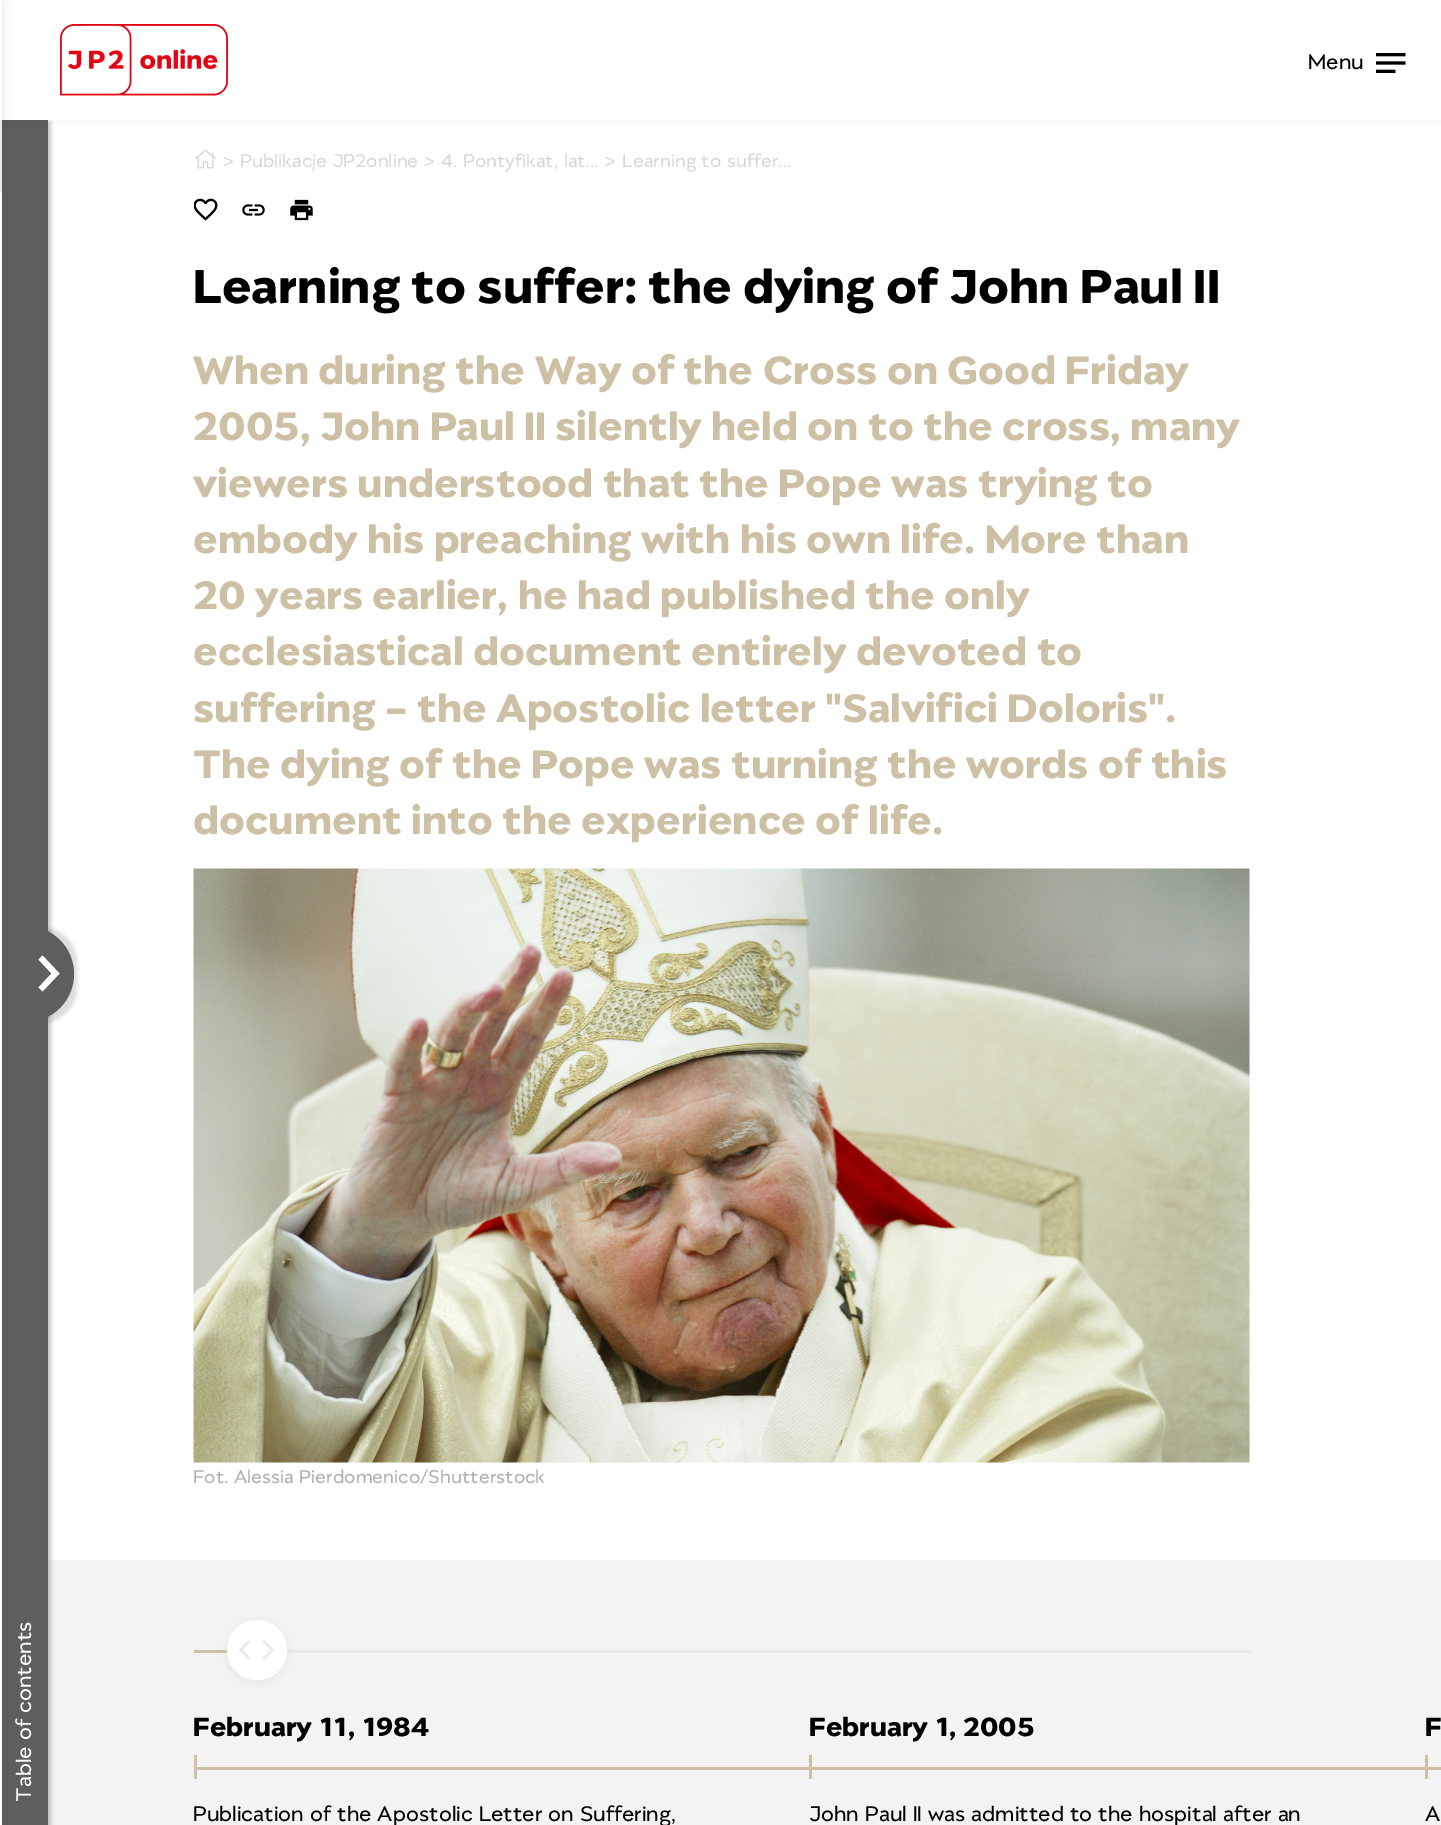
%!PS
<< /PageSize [1441 1825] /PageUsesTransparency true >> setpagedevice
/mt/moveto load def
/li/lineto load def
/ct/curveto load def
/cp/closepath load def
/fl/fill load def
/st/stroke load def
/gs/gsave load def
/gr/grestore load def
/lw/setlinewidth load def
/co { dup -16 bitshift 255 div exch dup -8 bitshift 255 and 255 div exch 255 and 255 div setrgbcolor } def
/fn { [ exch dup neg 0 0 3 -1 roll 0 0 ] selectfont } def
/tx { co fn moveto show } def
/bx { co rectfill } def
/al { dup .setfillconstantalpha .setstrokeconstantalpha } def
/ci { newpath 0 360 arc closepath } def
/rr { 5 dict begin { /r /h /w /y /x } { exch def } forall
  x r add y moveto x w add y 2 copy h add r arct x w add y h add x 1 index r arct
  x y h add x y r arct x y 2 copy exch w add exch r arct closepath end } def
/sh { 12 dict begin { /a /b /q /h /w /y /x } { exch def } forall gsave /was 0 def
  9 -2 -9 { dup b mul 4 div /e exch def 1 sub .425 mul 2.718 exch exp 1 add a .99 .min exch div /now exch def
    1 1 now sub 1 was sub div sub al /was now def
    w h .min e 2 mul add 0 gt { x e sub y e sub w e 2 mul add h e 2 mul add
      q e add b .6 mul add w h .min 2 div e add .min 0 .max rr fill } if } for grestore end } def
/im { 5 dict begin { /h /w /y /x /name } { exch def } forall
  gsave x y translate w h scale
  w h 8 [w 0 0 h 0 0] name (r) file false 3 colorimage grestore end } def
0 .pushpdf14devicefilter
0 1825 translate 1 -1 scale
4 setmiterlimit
0 0 1441 1825 16#FFFFFF bx
48 1560 1393 265 16#F3F3F3 bx
16#000000 co
-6 122 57 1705 0 2 .22 sh
2 120 46 1705 16#5E5E5E bx
16#000000 co
0 3 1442 120 0 3 .04 sh
2 1 1439 119 16#FFFFFF bx
16#5F5F5F co
5 927 72 96 48 2 .22 sh
16#5E5E5E co
2 926 mt 26 926 li 52.5 926 74 947.5 74 974 ct 74 1000.5 52.5 1022 26 1022 ct 2 1022 li cp fl
16#000000 co
-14 0 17 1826 0 4.5 .1 sh
0 0 2 1825 16#FFFFFF bx
0 120 2 72 16#EAEAEA bx
(media/1.raw) 60 24 168 72 im
(media/2.raw) 1376 53 30 20 im
16#FFFFFF co
42.5 955.5 mt 38.5 959.5 li 51.5 973.5 li 38.5 987.5 li 42.5 991.5 li 59.5 973.5 li cp eofill
(media/3.raw) 195 149 21 20 im
(media/4.raw) 194 198 24 23 im
(media/5.raw) 242 204 23 12 im
(media/6.raw) 290 199 23 22 im
(media/7.raw) 193 868 1057 595 im
286 1650 964 3 16#EAEAEA bx
194 1650 34 3 16#CEC0A4 bx
16#D4D4D4 co
227 1622 60 60 30 4.5 .5 sh
16#FFFFFF co
257 1650 30 ci fl
16#EAEAEA co
2.6 lw
263.5 1659 mt 272.5 1650 li 263.5 1641 li 249.5 1659 mt 240.5 1650 li 249.5 1641 li st
194 1767 1247 3 16#CEC0A4 bx
194 1755 3 24 16#CEC0A4 bx
809 1755 3 24 16#CEC0A4 bx
1425 1755 3 24 16#CEC0A4 bx
(Menu) 1308 69 /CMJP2-Regular 24 16#000000 tx
16#FFFFFF co
gs 31 1802 translate -90 rotate 0 0 mt 1.5 0 32 (Table of contents) widthshow gr
(>) 223 167 /CMJP2-Regular 21 16#D7D7D7 tx
240 167 mt 1.5 0 32 (Publikacje JP2online) widthshow
(>) 424 167 /CMJP2-Regular 21 16#D7D7D7 tx
441 167 mt 1.5 0 32 (4. Pontyfikat, lat...) widthshow
(>) 605 167 /CMJP2-Regular 21 16#D7D7D7 tx
622 167 mt 1.5 0 32 (Learning to suffer...) widthshow
/CMJP2-SemiBold 54 fn
16#000000 co
193 303 mt 1.5 0 32 (Learning to suffer: the dying of John Paul II) widthshow
/CMJP2-SemiBold 45 fn
16#CEC0A4 co
193 384 mt 1.5 0 32 (When during the Way of the Cross on Good Friday) widthshow
193 440 mt 1.5 0 32 (2005, John Paul II) widthshow
555 440 mt 1.5 0 32 (silently held on to the cross, many) widthshow
193 497 mt 1.5 0 32 (viewers understood that the Pope was) widthshow
978 497 mt 1.5 0 32 (trying to) widthshow
193 553 mt 1.5 0 32 (embody his preaching with his own life. More than) widthshow
193 609 mt 1.5 0 32 (20 years) widthshow
372 609 mt 1.5 0 32 (earlier, he had published the only) widthshow
193 665 mt 1.5 0 32 (ecclesiastical document entirely) widthshow
856 665 mt 1.5 0 32 (devoted to) widthshow
193 722 mt 1.5 0 32 (suffering - the Apostolic letter "Salvifici Doloris".) widthshow
(The) 193 778 /CMJP2-SemiBold 45 16#CEC0A4 tx
280 778 mt 1.5 0 32 (dying of the Pope was turning the words of this) widthshow
193 834 mt 1.5 0 32 (document into the) widthshow
581 834 mt 1.5 0 32 (experience of life.) widthshow
/CMJP2-Regular 21 fn
16#AFAFAF co
193 1483 mt 1.5 0 32 (Fot. Alessia Pierdomenico/Shutterstock) widthshow
/CMJP2-SemiBold 30 fn
16#000000 co
193 1736 mt 1.5 0 32 (February 11, 1984) widthshow
/CMJP2-Regular 24 fn
193 1821 mt 1.5 0 32 (Publication of the Apostolic Letter on Suffering,) widthshow
/CMJP2-SemiBold 30 fn
809 1736 mt 1.5 0 32 (February 1, 2005) widthshow
/CMJP2-Regular 24 fn
809 1821 mt 1.5 0 32 (John Paul II was admitted to the hospital after an) widthshow
/CMJP2-SemiBold 30 fn
1425 1736 mt 1.5 0 32 (F) widthshow
/CMJP2-Regular 24 fn
1425 1821 mt 1.5 0 32 (A) widthshow
.poppdf14devicefilter showpage
